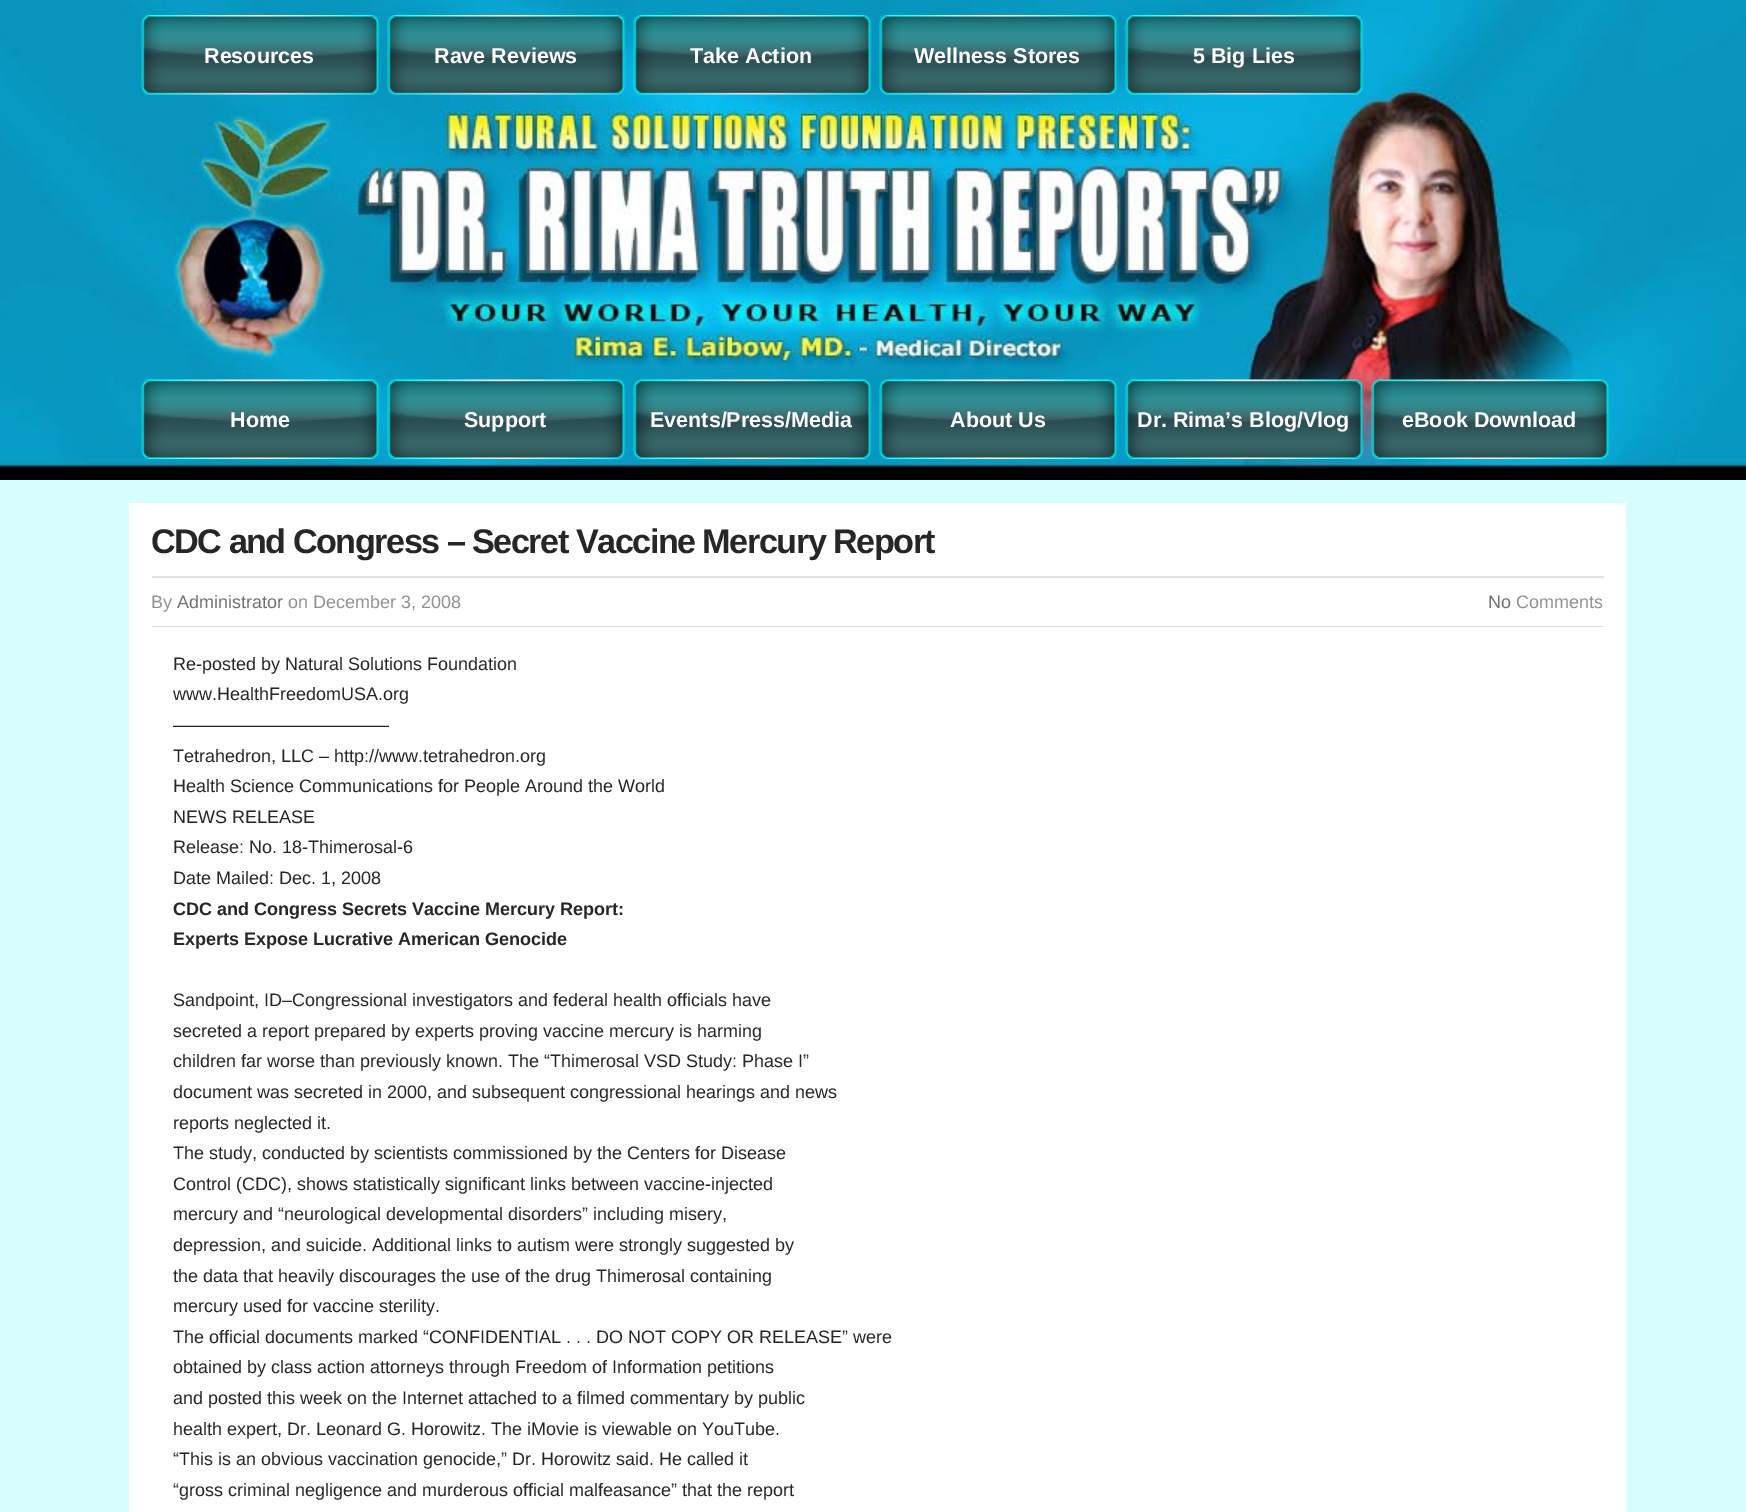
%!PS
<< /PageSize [1746 1512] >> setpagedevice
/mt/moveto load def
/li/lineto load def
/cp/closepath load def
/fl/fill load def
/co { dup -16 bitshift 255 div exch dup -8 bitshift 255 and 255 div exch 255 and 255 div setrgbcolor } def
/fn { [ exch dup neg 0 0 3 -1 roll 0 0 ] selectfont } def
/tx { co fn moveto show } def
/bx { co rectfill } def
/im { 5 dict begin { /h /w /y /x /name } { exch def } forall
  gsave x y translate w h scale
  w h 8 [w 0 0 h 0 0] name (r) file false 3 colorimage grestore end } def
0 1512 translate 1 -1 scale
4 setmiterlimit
0 0 1746 1512 16#D7FDFE bx
(media/1.raw) 0 0 1746 480 im
(media/2.raw) 141 15 239 80 im
(media/3.raw) 387 15 239 80 im
(media/4.raw) 633 15 239 80 im
(media/5.raw) 879 15 239 80 im
(media/6.raw) 1125 15 239 80 im
(media/7.raw) 141 379 239 80 im
(media/8.raw) 387 379 239 80 im
(media/9.raw) 633 379 239 80 im
(media/10.raw) 879 379 239 80 im
(media/11.raw) 1125 379 239 80 im
(media/12.raw) 1371 379 239 80 im
129 503 1497 1009 16#FFFFFF bx
16#E1E1E1 co
152 576 mt 152 578 li 1604 578 li 1604 626 li 1604 576 li cp fl
152 578 1452 2 16#FAFAFA bx
152 626 1452 1 16#E1E1E1 bx
(Resources) 204 63 /LiberationSans-Bold 21.5 16#FFFFFF tx
(Rave Reviews) 434 63 /LiberationSans-Bold 21.5 16#FFFFFF tx
(Take Action) 690 63 /LiberationSans-Bold 21.5 16#FFFFFF tx
(Wellness Stores) 914 63 /LiberationSans-Bold 21.5 16#FFFFFF tx
(5 Big Lies) 1193 63 /LiberationSans-Bold 21.5 16#FFFFFF tx
(Home) 230 427 /LiberationSans-Bold 21.5 16#FFFFFF tx
(Support) 464 427 /LiberationSans-Bold 21.5 16#FFFFFF tx
(Events/Press/Media) 650 427 /LiberationSans-Bold 21.5 16#FFFFFF tx
(About Us) 950 427 /LiberationSans-Bold 21.5 16#FFFFFF tx
(Dr. Rima’s Blog/Vlog) 1137 427 /LiberationSans-Bold 21.5 16#FFFFFF tx
(eBook Download) 1402 427 /LiberationSans-Bold 21.5 16#FFFFFF tx
/LiberationSans-Bold 34.2 fn
16#262626 co
151 553 mt -1.5 0 (CDC and Congress – Secret Vaccine Mercury Report) ashow
(By) 151 608 /LiberationSans-Regular 18 16#919191 tx
(Administrator) 177 608 /LiberationSans-Regular 18 16#717171 tx
(on December 3, 2008) 288 608 /LiberationSans-Regular 18 16#919191 tx
(No) 1488 608 /LiberationSans-Regular 18 16#717171 tx
(Comments) 1516 608 /LiberationSans-Regular 18 16#919191 tx
(Re-posted by Natural Solutions Foundation) 173 670 /LiberationSans-Regular 18 16#262626 tx
(www.HealthFreedomUSA.org) 173 700 /LiberationSans-Regular 18 16#262626 tx
(————————————) 173 731 /LiberationSans-Regular 18 16#262626 tx
(Tetrahedron, LLC – http://www.tetrahedron.org) 173 762 /LiberationSans-Regular 18 16#262626 tx
(Health Science Communications for People Around the World) 173 792 /LiberationSans-Regular 18 16#262626 tx
(NEWS RELEASE) 173 823 /LiberationSans-Regular 18 16#262626 tx
(Release: No. 18-Thimerosal-6) 173 853 /LiberationSans-Regular 18 16#262626 tx
(Date Mailed: Dec. 1, 2008) 173 884 /LiberationSans-Regular 18 16#262626 tx
(CDC and Congress Secrets Vaccine Mercury Report:) 173 915 /LiberationSans-Bold 18 16#262626 tx
(Experts Expose Lucrative American Genocide) 173 945 /LiberationSans-Bold 18 16#262626 tx
(Sandpoint, ID–Congressional investigators and federal health officials have) 173 1006 /LiberationSans-Regular 18 16#262626 tx
(secreted a report prepared by experts proving vaccine mercury is harming) 173 1037 /LiberationSans-Regular 18 16#262626 tx
(children far worse than previously known. The “Thimerosal VSD Study: Phase I”) 173 1067 /LiberationSans-Regular 18 16#262626 tx
(document was secreted in 2000, and subsequent congressional hearings and news) 173 1098 /LiberationSans-Regular 18 16#262626 tx
(reports neglected it.) 173 1129 /LiberationSans-Regular 18 16#262626 tx
(The study, conducted by scientists commissioned by the Centers for Disease) 173 1159 /LiberationSans-Regular 18 16#262626 tx
(Control \(CDC\), shows statistically significant links between vaccine-injected) 173 1190 /LiberationSans-Regular 18 16#262626 tx
(mercury and “neurological developmental disorders” including misery,) 173 1220 /LiberationSans-Regular 18 16#262626 tx
(depression, and suicide. Additional links to autism were strongly suggested by) 173 1251 /LiberationSans-Regular 18 16#262626 tx
(the data that heavily discourages the use of the drug Thimerosal containing) 173 1282 /LiberationSans-Regular 18 16#262626 tx
(mercury used for vaccine sterility.) 173 1312 /LiberationSans-Regular 18 16#262626 tx
(The official documents marked “CONFIDENTIAL . . . DO NOT COPY OR RELEASE” were) 173 1343 /LiberationSans-Regular 18 16#262626 tx
(obtained by class action attorneys through Freedom of Information petitions) 173 1373 /LiberationSans-Regular 18 16#262626 tx
(and posted this week on the Internet attached to a filmed commentary by public) 173 1404 /LiberationSans-Regular 18 16#262626 tx
(health expert, Dr. Leonard G. Horowitz. The iMovie is viewable on YouTube.) 173 1435 /LiberationSans-Regular 18 16#262626 tx
(“This is an obvious vaccination genocide,” Dr. Horowitz said. He called it) 173 1465 /LiberationSans-Regular 18 16#262626 tx
(“gross criminal negligence and murderous official malfeasance” that the report) 173 1496 /LiberationSans-Regular 18 16#262626 tx
showpage
